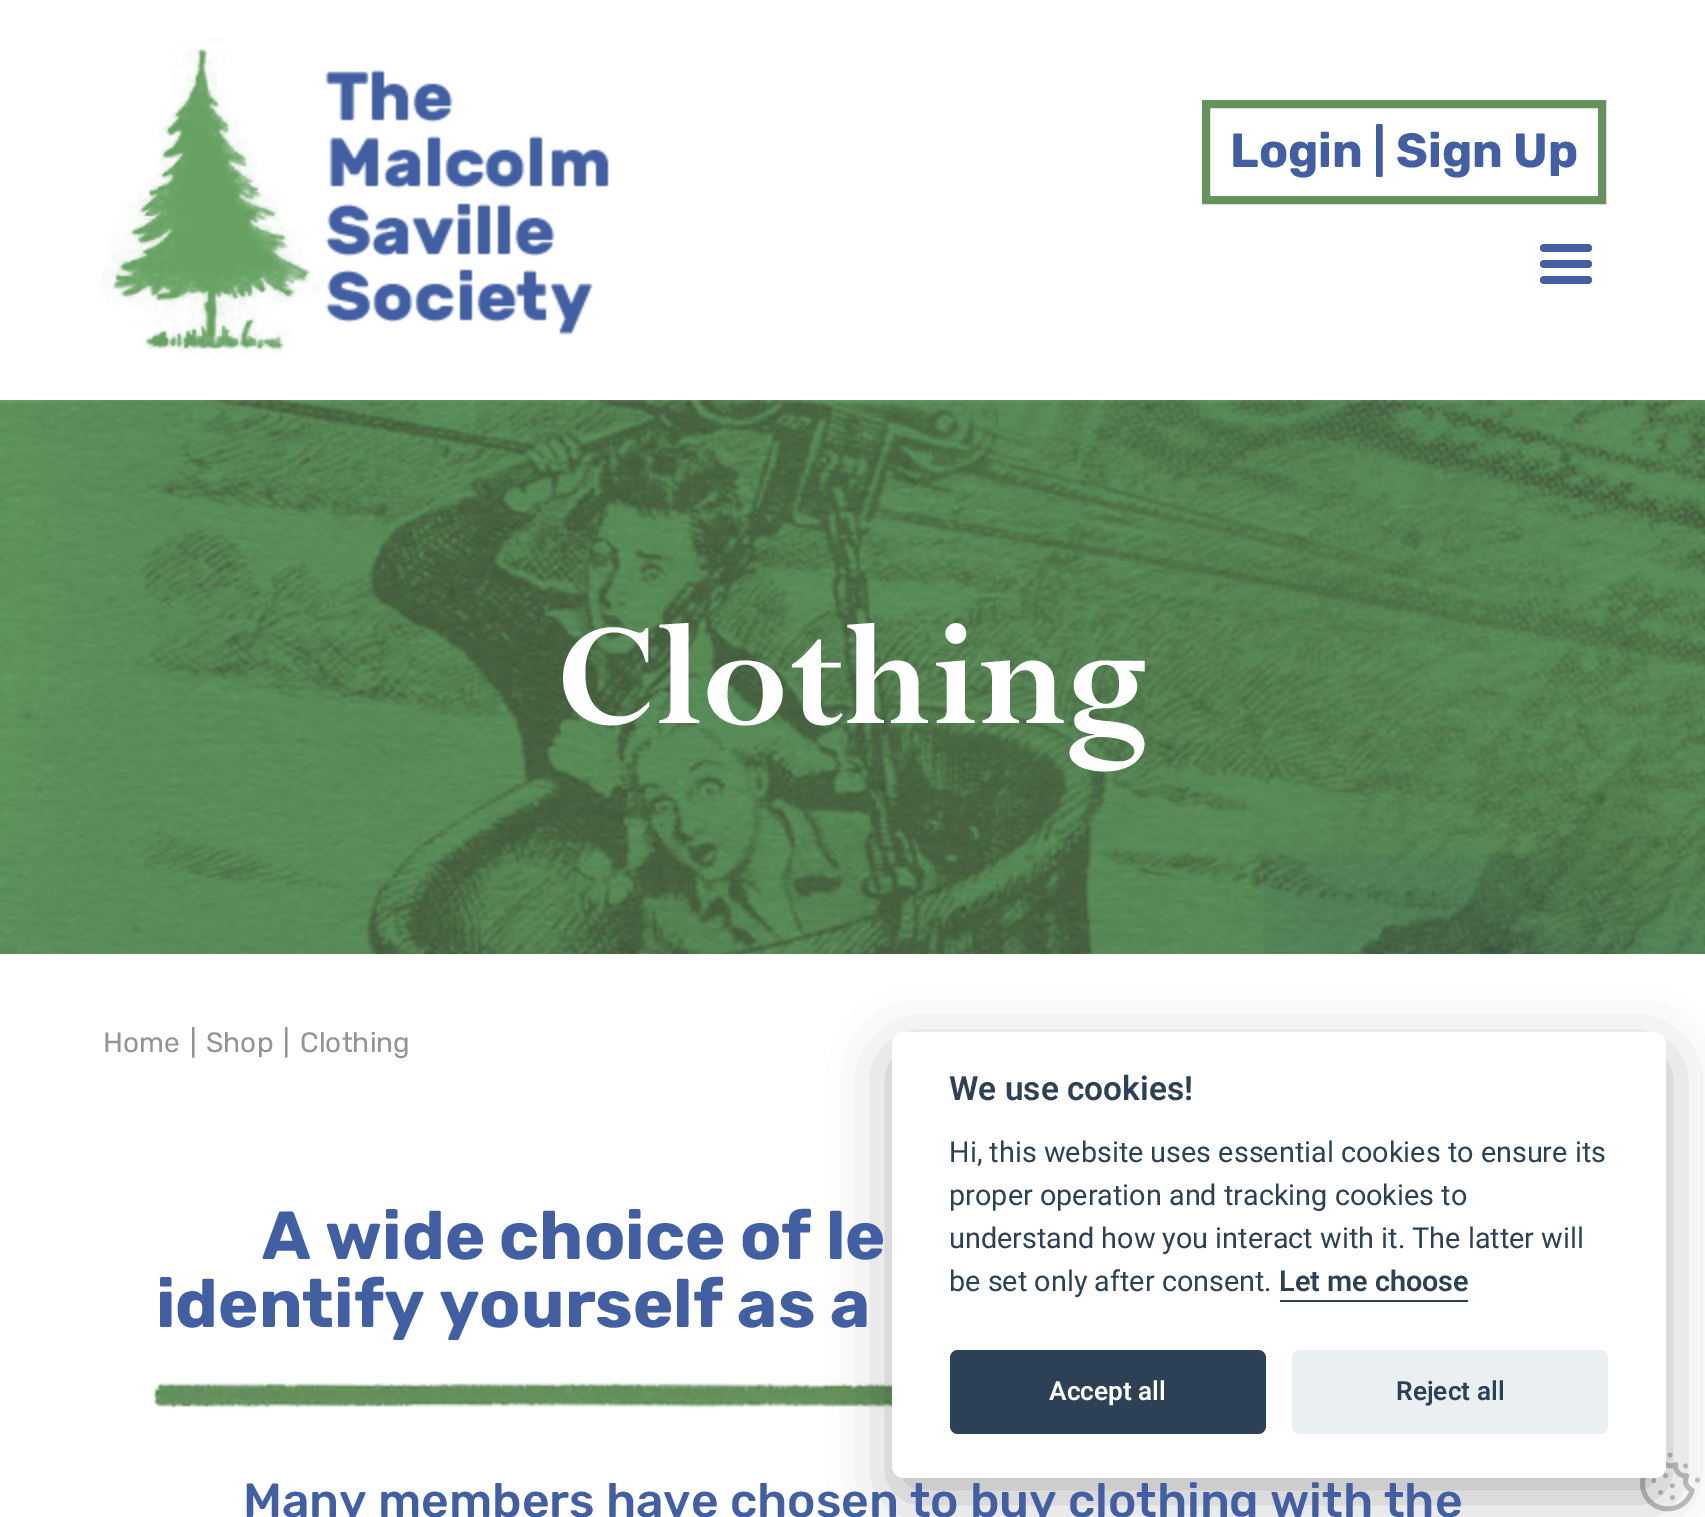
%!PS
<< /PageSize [1705 1517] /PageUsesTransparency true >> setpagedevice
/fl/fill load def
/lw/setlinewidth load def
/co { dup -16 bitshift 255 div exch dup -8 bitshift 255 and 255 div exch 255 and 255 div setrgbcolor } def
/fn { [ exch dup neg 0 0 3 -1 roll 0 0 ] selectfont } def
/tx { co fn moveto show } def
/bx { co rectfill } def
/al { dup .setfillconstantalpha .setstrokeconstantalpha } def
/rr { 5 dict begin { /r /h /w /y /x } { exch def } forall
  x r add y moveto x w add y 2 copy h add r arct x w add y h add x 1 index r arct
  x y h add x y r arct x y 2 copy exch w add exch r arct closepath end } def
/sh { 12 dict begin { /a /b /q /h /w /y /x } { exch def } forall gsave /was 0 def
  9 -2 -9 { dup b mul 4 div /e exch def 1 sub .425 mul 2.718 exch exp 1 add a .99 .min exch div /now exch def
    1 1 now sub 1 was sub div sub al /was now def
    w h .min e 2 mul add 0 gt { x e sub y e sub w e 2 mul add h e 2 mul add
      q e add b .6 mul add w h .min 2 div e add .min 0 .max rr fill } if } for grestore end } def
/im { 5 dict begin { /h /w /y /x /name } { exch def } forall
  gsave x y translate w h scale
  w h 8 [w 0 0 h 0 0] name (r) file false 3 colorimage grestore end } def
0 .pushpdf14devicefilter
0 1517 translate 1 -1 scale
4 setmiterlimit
0 0 1705 1517 16#FFFFFF bx
(media/1.raw) 100 38 509 320 im
16#66925E co
8 lw
1206 104 396 96 rectstroke
16#415FA2 co
1540 244 52 8 4 rr fl
1540 260 52 8 4 rr fl
1540 276 52 8 4 rr fl
(media/2.raw) 0 400 1705 554 im
(media/3.raw) 154 1382 738 27 im
(media/4.raw) 1640 1452 60 60 im
16#020203 co
892 1052 774 446 12 30 .28 sh
16#FFFFFF co
892 1032 774 446 12 rr fl
1280 1300 188 2 16#2D4156 bx
950 1350 316 84 8 rr fl
16#EAEFF2 co
1292 1350 316 84 8 rr fl
(Login | Sign Up) 1230 167 /Rubik-Bold 48 16#415FA2 tx
(Clothing) 556 723 /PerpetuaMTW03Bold-Bold 160 16#FFFFFF tx
(Home) 103 1052 /Rubik-Regular 28 16#949494 tx
(|) 190 1052 /Rubik-Regular 28 16#949494 tx
(Shop) 206 1052 /Rubik-Regular 28 16#949494 tx
(|) 283 1052 /Rubik-Regular 28 16#949494 tx
(Clothing) 300 1052 /Rubik-Regular 28 16#949494 tx
(A wide choice of le) 262 1259 /Rubik-Bold 68 16#415FA2 tx
(identify yourself as a) 156 1327 /Rubik-Bold 68 16#415FA2 tx
(Many members have chosen to buy clothing with the) 243 1517 /Rubik-Medium 48 16#415FA2 tx
(We use cookies!) 949 1100 /Roboto-SemiBold 33.5 16#2D4156 tx
(Hi, this website uses essential cookies to ensure its) 949 1162 /Roboto-Regular 28.8 16#2D4156 tx
(proper operation and tracking cookies to) 949 1205 /Roboto-Regular 28.8 16#2D4156 tx
(understand how you interact with it. The latter will) 949 1248 /Roboto-Regular 28.8 16#2D4156 tx
(be set only after consent.) 949 1291 /Roboto-Regular 28.8 16#2D4156 tx
(Let me choose) 1279 1291 /Roboto-SemiBold 28.8 16#2D4156 tx
(Accept all) 1049 1400 /Roboto-SemiBold 26.25 16#FFFFFF tx
(Reject all) 1396 1400 /Roboto-SemiBold 26.25 16#2D4156 tx
.poppdf14devicefilter showpage
